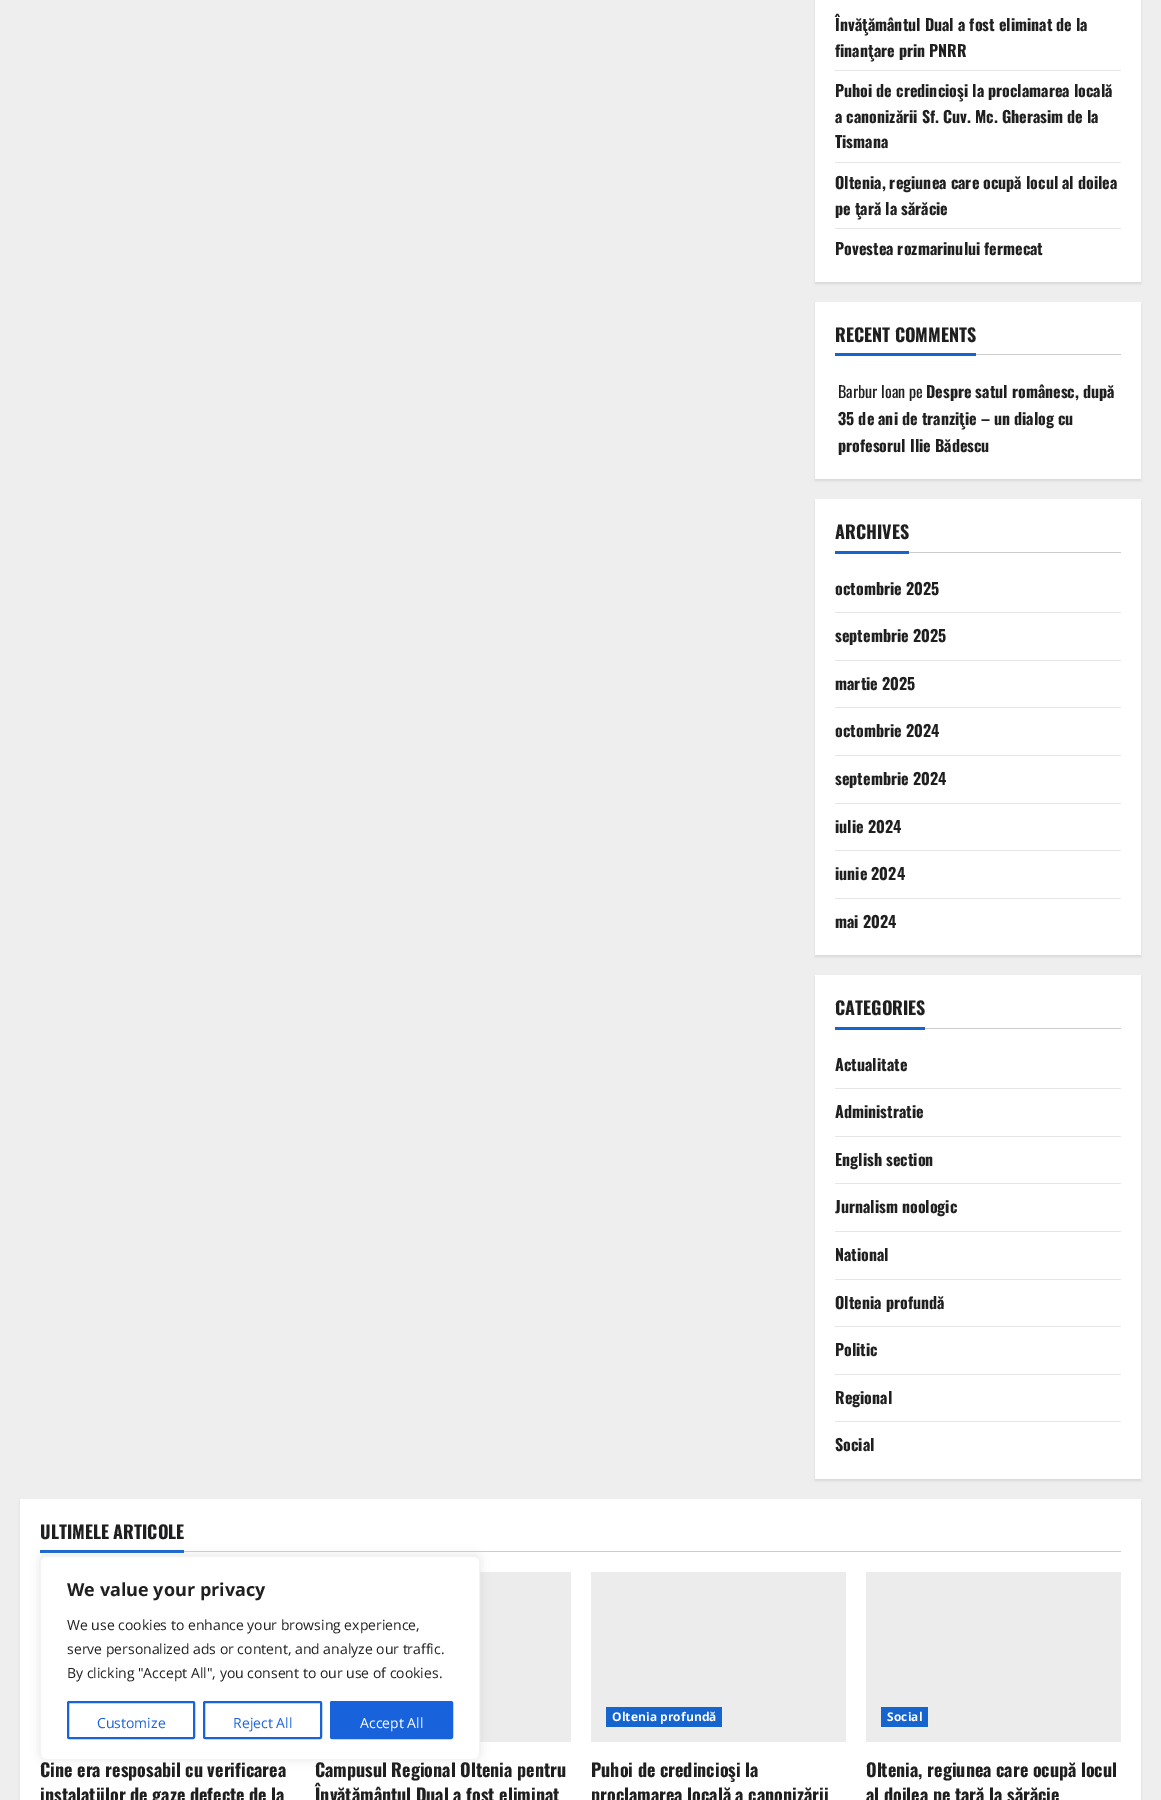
%!PS
<< /PageSize [1161 1800] /PageUsesTransparency true >> setpagedevice
/mt/moveto load def
/fl/fill load def
/st/stroke load def
/gs/gsave load def
/gr/grestore load def
/lw/setlinewidth load def
/co { dup -16 bitshift 255 div exch dup -8 bitshift 255 and 255 div exch 255 and 255 div setrgbcolor } def
/fn { [ exch dup neg 0 0 3 -1 roll 0 0 ] selectfont } def
/tx { co fn moveto show } def
/bx { co rectfill } def
/al { dup .setfillconstantalpha .setstrokeconstantalpha } def
/rr { 5 dict begin { /r /h /w /y /x } { exch def } forall
  x r add y moveto x w add y 2 copy h add r arct x w add y h add x 1 index r arct
  x y h add x y r arct x y 2 copy exch w add exch r arct closepath end } def
/sh { 12 dict begin { /a /b /q /h /w /y /x } { exch def } forall gsave /was 0 def
  9 -2 -9 { dup b mul 4 div /e exch def 1 sub .425 mul 2.718 exch exp 1 add a .99 .min exch div /now exch def
    1 1 now sub 1 was sub div sub al /was now def
    w h .min e 2 mul add 0 gt { x e sub y e sub w e 2 mul add h e 2 mul add
      q e add b .6 mul add w h .min 2 div e add .min 0 .max rr fill } if } for grestore end } def
0 .pushpdf14devicefilter
0 1800 translate 1 -1 scale
4 setmiterlimit
0 0 1161 1800 16#EEEEEE bx
16#000000 co
815 -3 326 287 0 1 .08 sh
815 0 326 282 16#FFFFFF bx
835 70 286 1 16#E6E6E6 bx
835 162 286 1 16#E6E6E6 bx
835 228 286 1 16#E6E6E6 bx
16#000000 co
815 304 326 177 0 1 .08 sh
815 302 326 177 16#FFFFFF bx
835 353 141 3 16#1665CF bx
976 354 145 1 16#CCCCCC bx
16#000000 co
815 501 326 456 0 1 .08 sh
815 499 326 456 16#FFFFFF bx
835 551 74 3 16#1665CF bx
909 552 212 1 16#CCCCCC bx
835 612 286 1 16#E6E6E6 bx
835 660 286 1 16#E6E6E6 bx
835 707 286 1 16#E6E6E6 bx
835 755 286 1 16#E6E6E6 bx
835 803 286 1 16#E6E6E6 bx
835 850 286 1 16#E6E6E6 bx
835 898 286 1 16#E6E6E6 bx
16#000000 co
815 977 326 504 0 1 .08 sh
815 975 326 504 16#FFFFFF bx
835 1027 90 3 16#1665CF bx
925 1028 196 1 16#CCCCCC bx
835 1088 286 1 16#E6E6E6 bx
835 1136 286 1 16#E6E6E6 bx
835 1183 286 1 16#E6E6E6 bx
835 1231 286 1 16#E6E6E6 bx
835 1279 286 1 16#E6E6E6 bx
835 1326 286 1 16#E6E6E6 bx
835 1374 286 1 16#E6E6E6 bx
835 1421 286 1 16#E6E6E6 bx
16#000000 co
20 1501 1121 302 0 1 .08 sh
20 1499 1121 301 16#FFFFFF bx
184 1551 937 1 16#CCCCCC bx
40 1550 144 3 16#1665CF bx
480 1572 91 170 16#ECECEC bx
591 1572 255 170 16#ECECEC bx
606 1707 116 20 16#1665CF bx
866 1572 255 170 16#ECECEC bx
881 1707 47 20 16#1665CF bx
16#ACABAB co
40 1555 440 204 6 5 .3 sh
16#FFFFFF co
40.5 1556.5 439 203 5.5 rr gs fl gr
16#F4F4F4 co
st
16#1863DC co
2 lw
68 1702 126 36 1 rr st
204 1702 117 36 1 rr st
331 1702 121 36 1 rr gs fl gr
st
(Învăţământul Dual a fost eliminat de la) 835 31 /Oswald-Bold 16 16#1F1F1F tx
(finanţare prin PNRR) 835 57 /Oswald-Bold 16 16#1F1F1F tx
(Puhoi de credincioşi la proclamarea locală) 835 97 /Oswald-Bold 16 16#1F1F1F tx
(a canonizării Sf. Cuv. Mc. Gherasim de la) 835 123 /Oswald-Bold 16 16#1F1F1F tx
(Tismana) 835 148 /Oswald-Bold 16 16#1F1F1F tx
(Oltenia, regiunea care ocupă locul al doilea) 835 189 /Oswald-Bold 16 16#1F1F1F tx
(pe ţară la sărăcie) 835 215 /Oswald-Bold 16 16#1F1F1F tx
(Povestea rozmarinului fermecat) 835 255 /Oswald-Bold 16 16#1F1F1F tx
(RECENT COMMENTS) 835 342 /Oswald-Bold 18 16#1F1F1F tx
(Barbur Ioan pe) 838 398 /Oswald-Regular 16 16#1F1F1F tx
(Despre satul românesc, după) 926 398 /Oswald-Bold 16 16#1F1F1F tx
(35 de ani de tranziţie – un dialog cu) 838 425 /Oswald-Bold 16 16#1F1F1F tx
(profesorul Ilie Bădescu) 838 452 /Oswald-Bold 16 16#1F1F1F tx
(ARCHIVES) 835 539 /Oswald-Bold 18 16#1F1F1F tx
(octombrie 2025) 835 595 /Oswald-Bold 16 16#1F1F1F tx
(septembrie 2025) 835 642 /Oswald-Bold 16 16#1F1F1F tx
(martie 2025) 835 690 /Oswald-Bold 16 16#1F1F1F tx
(octombrie 2024) 835 737 /Oswald-Bold 16 16#1F1F1F tx
(septembrie 2024) 835 785 /Oswald-Bold 16 16#1F1F1F tx
(iulie 2024) 835 833 /Oswald-Bold 16 16#1F1F1F tx
(iunie 2024) 835 880 /Oswald-Bold 16 16#1F1F1F tx
(mai 2024) 835 928 /Oswald-Bold 16 16#1F1F1F tx
(CATEGORIES) 835 1015 /Oswald-Bold 18 16#1F1F1F tx
(Actualitate) 835 1071 /Oswald-Bold 16 16#1F1F1F tx
(Administratie) 835 1118 /Oswald-Bold 16 16#1F1F1F tx
(English section) 835 1166 /Oswald-Bold 16 16#1F1F1F tx
(Jurnalism noologic) 835 1213 /Oswald-Bold 16 16#1F1F1F tx
(National) 835 1261 /Oswald-Bold 16 16#1F1F1F tx
(Oltenia profundă) 835 1309 /Oswald-Bold 16 16#1F1F1F tx
(Politic) 835 1356 /Oswald-Bold 16 16#1F1F1F tx
(Regional) 835 1404 /Oswald-Bold 16 16#1F1F1F tx
(Social) 835 1451 /Oswald-Bold 16 16#1F1F1F tx
(ULTIMELE ARTICOLE) 40 1539 /Oswald-Bold 18 16#1F1F1F tx
(Cine era resposabil cu verificarea) 40 1777 /Oswald-Bold 18 16#1F1F1F tx
(instalaţiilor de gaze defecte de la) 40 1802 /Oswald-Bold 18 16#1F1F1F tx
(Campusul Regional Oltenia pentru) 315 1777 /Oswald-Bold 18 16#1F1F1F tx
(Învăţământul Dual a fost eliminat) 315 1802 /Oswald-Bold 18 16#1F1F1F tx
/OpenSans-Bold 12 fn
16#FFFFFF co
612 1721 mt .1 0 (Oltenia profundă) ashow
(Puhoi de credincioşi la) 591 1777 /Oswald-Bold 18 16#1F1F1F tx
(proclamarea locală a canonizării) 591 1802 /Oswald-Bold 18 16#1F1F1F tx
/OpenSans-Bold 12 fn
16#FFFFFF co
887 1721 mt .1 0 (Social) ashow
(Oltenia, regiunea care ocupă locul) 866 1777 /Oswald-Bold 18 16#1F1F1F tx
(al doilea pe ţară la sărăcie) 866 1802 /Oswald-Bold 18 16#1F1F1F tx
(We value your privacy) 67 1596 /OpenSans-Bold 18 16#1F1F1F tx
(We use cookies to enhance your browsing experience,) 67 1630 /OpenSans-Regular 14 16#1F1F1F tx
(serve personalized ads or content, and analyze our traffic.) 67 1654 /OpenSans-Regular 14 16#1F1F1F tx
(By clicking "Accept All", you consent to our use of cookies.) 67 1678 /OpenSans-Regular 14 16#1F1F1F tx
(Customize) 97 1728 /OpenSans-Regular 14 16#1863DC tx
(Reject All) 233 1728 /OpenSans-Regular 14 16#1863DC tx
(Accept All) 360 1728 /OpenSans-Regular 14 16#FFFFFF tx
.poppdf14devicefilter showpage
